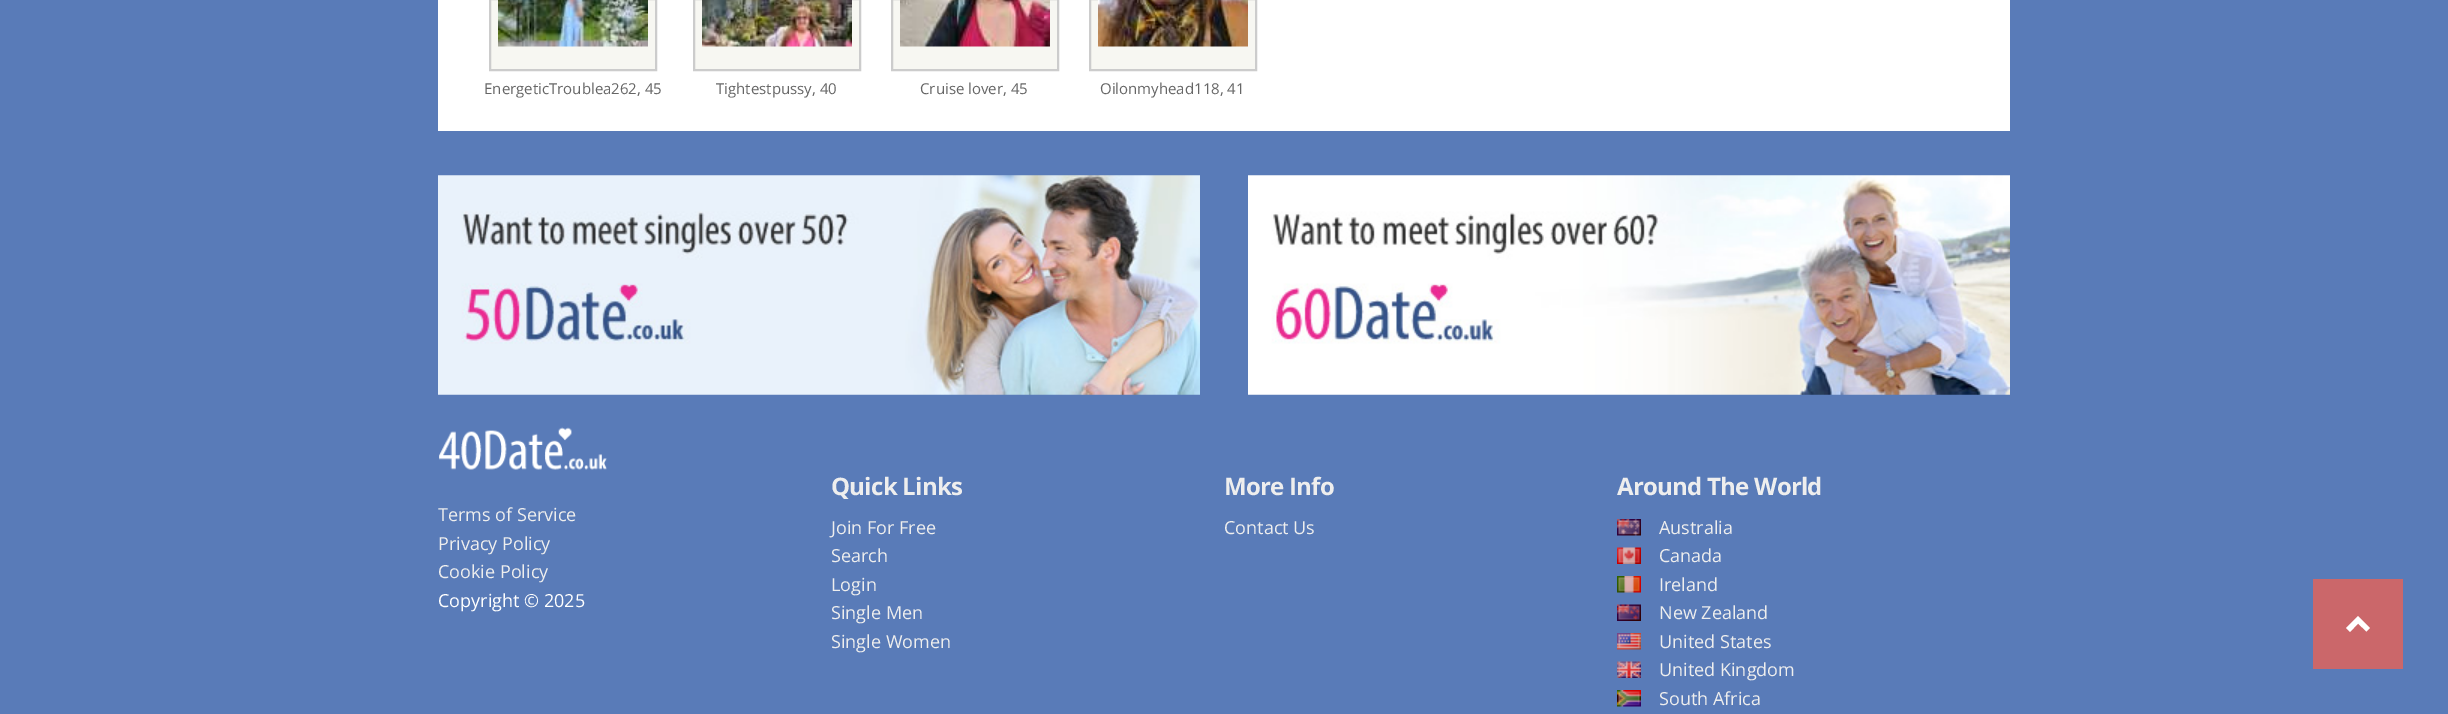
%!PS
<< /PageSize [2448 714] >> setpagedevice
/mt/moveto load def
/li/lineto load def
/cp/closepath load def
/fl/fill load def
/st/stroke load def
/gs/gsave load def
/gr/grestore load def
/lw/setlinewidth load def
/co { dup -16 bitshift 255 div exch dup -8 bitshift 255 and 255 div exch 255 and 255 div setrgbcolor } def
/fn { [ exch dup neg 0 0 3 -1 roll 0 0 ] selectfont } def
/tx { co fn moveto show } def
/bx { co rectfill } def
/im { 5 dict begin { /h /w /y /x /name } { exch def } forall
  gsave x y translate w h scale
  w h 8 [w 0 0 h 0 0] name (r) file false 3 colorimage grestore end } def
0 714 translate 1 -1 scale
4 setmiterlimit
0 0 2448 714 16#597BB8 bx
438 0 1572 131 16#FFFFFF bx
16#F7F7F2 co
490 -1 mt 656 -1 li 656 70 li 490 70 li cp gs fl gr
16#CCCCCC co
2 lw
st
(media/1.raw) 498 0 150 47 im
16#F7F7F2 co
694 -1 mt 860 -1 li 860 70 li 694 70 li cp gs fl gr
16#CCCCCC co
st
(media/2.raw) 702 0 150 47 im
16#F7F7F2 co
892 -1 mt 1058 -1 li 1058 70 li 892 70 li cp gs fl gr
16#CCCCCC co
st
(media/3.raw) 900 0 150 47 im
16#F7F7F2 co
1090 -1 mt 1256 -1 li 1256 70 li 1090 70 li cp gs fl gr
16#CCCCCC co
st
(media/4.raw) 1098 0 150 47 im
(media/5.raw) 438 175 762 220 im
(media/6.raw) 438 175 762 220 im
(media/7.raw) 1248 175 762 220 im
(media/8.raw) 1248 175 762 220 im
(media/9.raw) 439 427 168 43 im
(media/10.raw) 1617 519 24 17 im
(media/11.raw) 1617 547 24 17 im
(media/12.raw) 1617 576 24 17 im
(media/13.raw) 1617 604 24 17 im
(media/14.raw) 1617 633 24 17 im
(media/15.raw) 1617 661 24 17 im
(media/16.raw) 1617 690 24 17 im
2313 579 90 90 16#CB676A bx
16#FFFFFF co
2358 616 mt 2370 628 li 2366.5 631.5 li 2358 623.5 li 2350 632 li 2346 628 li cp fl
(EnergeticTroublea262, 45) 484 94 /OpenSans-Regular 15 16#666666 tx
(Tightestpussy, 40) 716 94 /OpenSans-Regular 15 16#666666 tx
(Cruise lover, 45) 920 94 /OpenSans-Regular 15 16#666666 tx
(Oilonmyhead118, 41) 1100 94 /OpenSans-Regular 15 16#666666 tx
(Terms of Service) 438 521 /OpenSans-Regular 18 16#EEEEEE tx
(Privacy Policy) 438 550 /OpenSans-Regular 18 16#EEEEEE tx
(Cookie Policy) 438 578 /OpenSans-Regular 18 16#EEEEEE tx
(Copyright © 2025) 438 607 /OpenSans-Regular 18 16#FFFFFF tx
/OpenSans-Bold 24 fn
16#EEEEEE co
831 495 mt -.75 0 (Quick Links) ashow
(Join For Free) 831 534 /OpenSans-Regular 18 16#EEEEEE tx
(Search) 831 562 /OpenSans-Regular 18 16#EEEEEE tx
(Login) 831 591 /OpenSans-Regular 18 16#EEEEEE tx
(Single Men) 831 619 /OpenSans-Regular 18 16#EEEEEE tx
(Single Women) 831 648 /OpenSans-Regular 18 16#EEEEEE tx
/OpenSans-Bold 24 fn
1224 495 mt -.75 0 (More Info) ashow
(Contact Us) 1224 534 /OpenSans-Regular 18 16#EEEEEE tx
/OpenSans-Bold 24 fn
1617 495 mt -.75 0 (Around The World) ashow
(Australia) 1659 534 /OpenSans-Regular 18 16#EEEEEE tx
(Canada) 1659 562 /OpenSans-Regular 18 16#EEEEEE tx
(Ireland) 1659 591 /OpenSans-Regular 18 16#EEEEEE tx
(New Zealand) 1659 619 /OpenSans-Regular 18 16#EEEEEE tx
(United States) 1659 648 /OpenSans-Regular 18 16#EEEEEE tx
(United Kingdom) 1659 676 /OpenSans-Regular 18 16#EEEEEE tx
(South Africa) 1659 705 /OpenSans-Regular 18 16#EEEEEE tx
showpage
